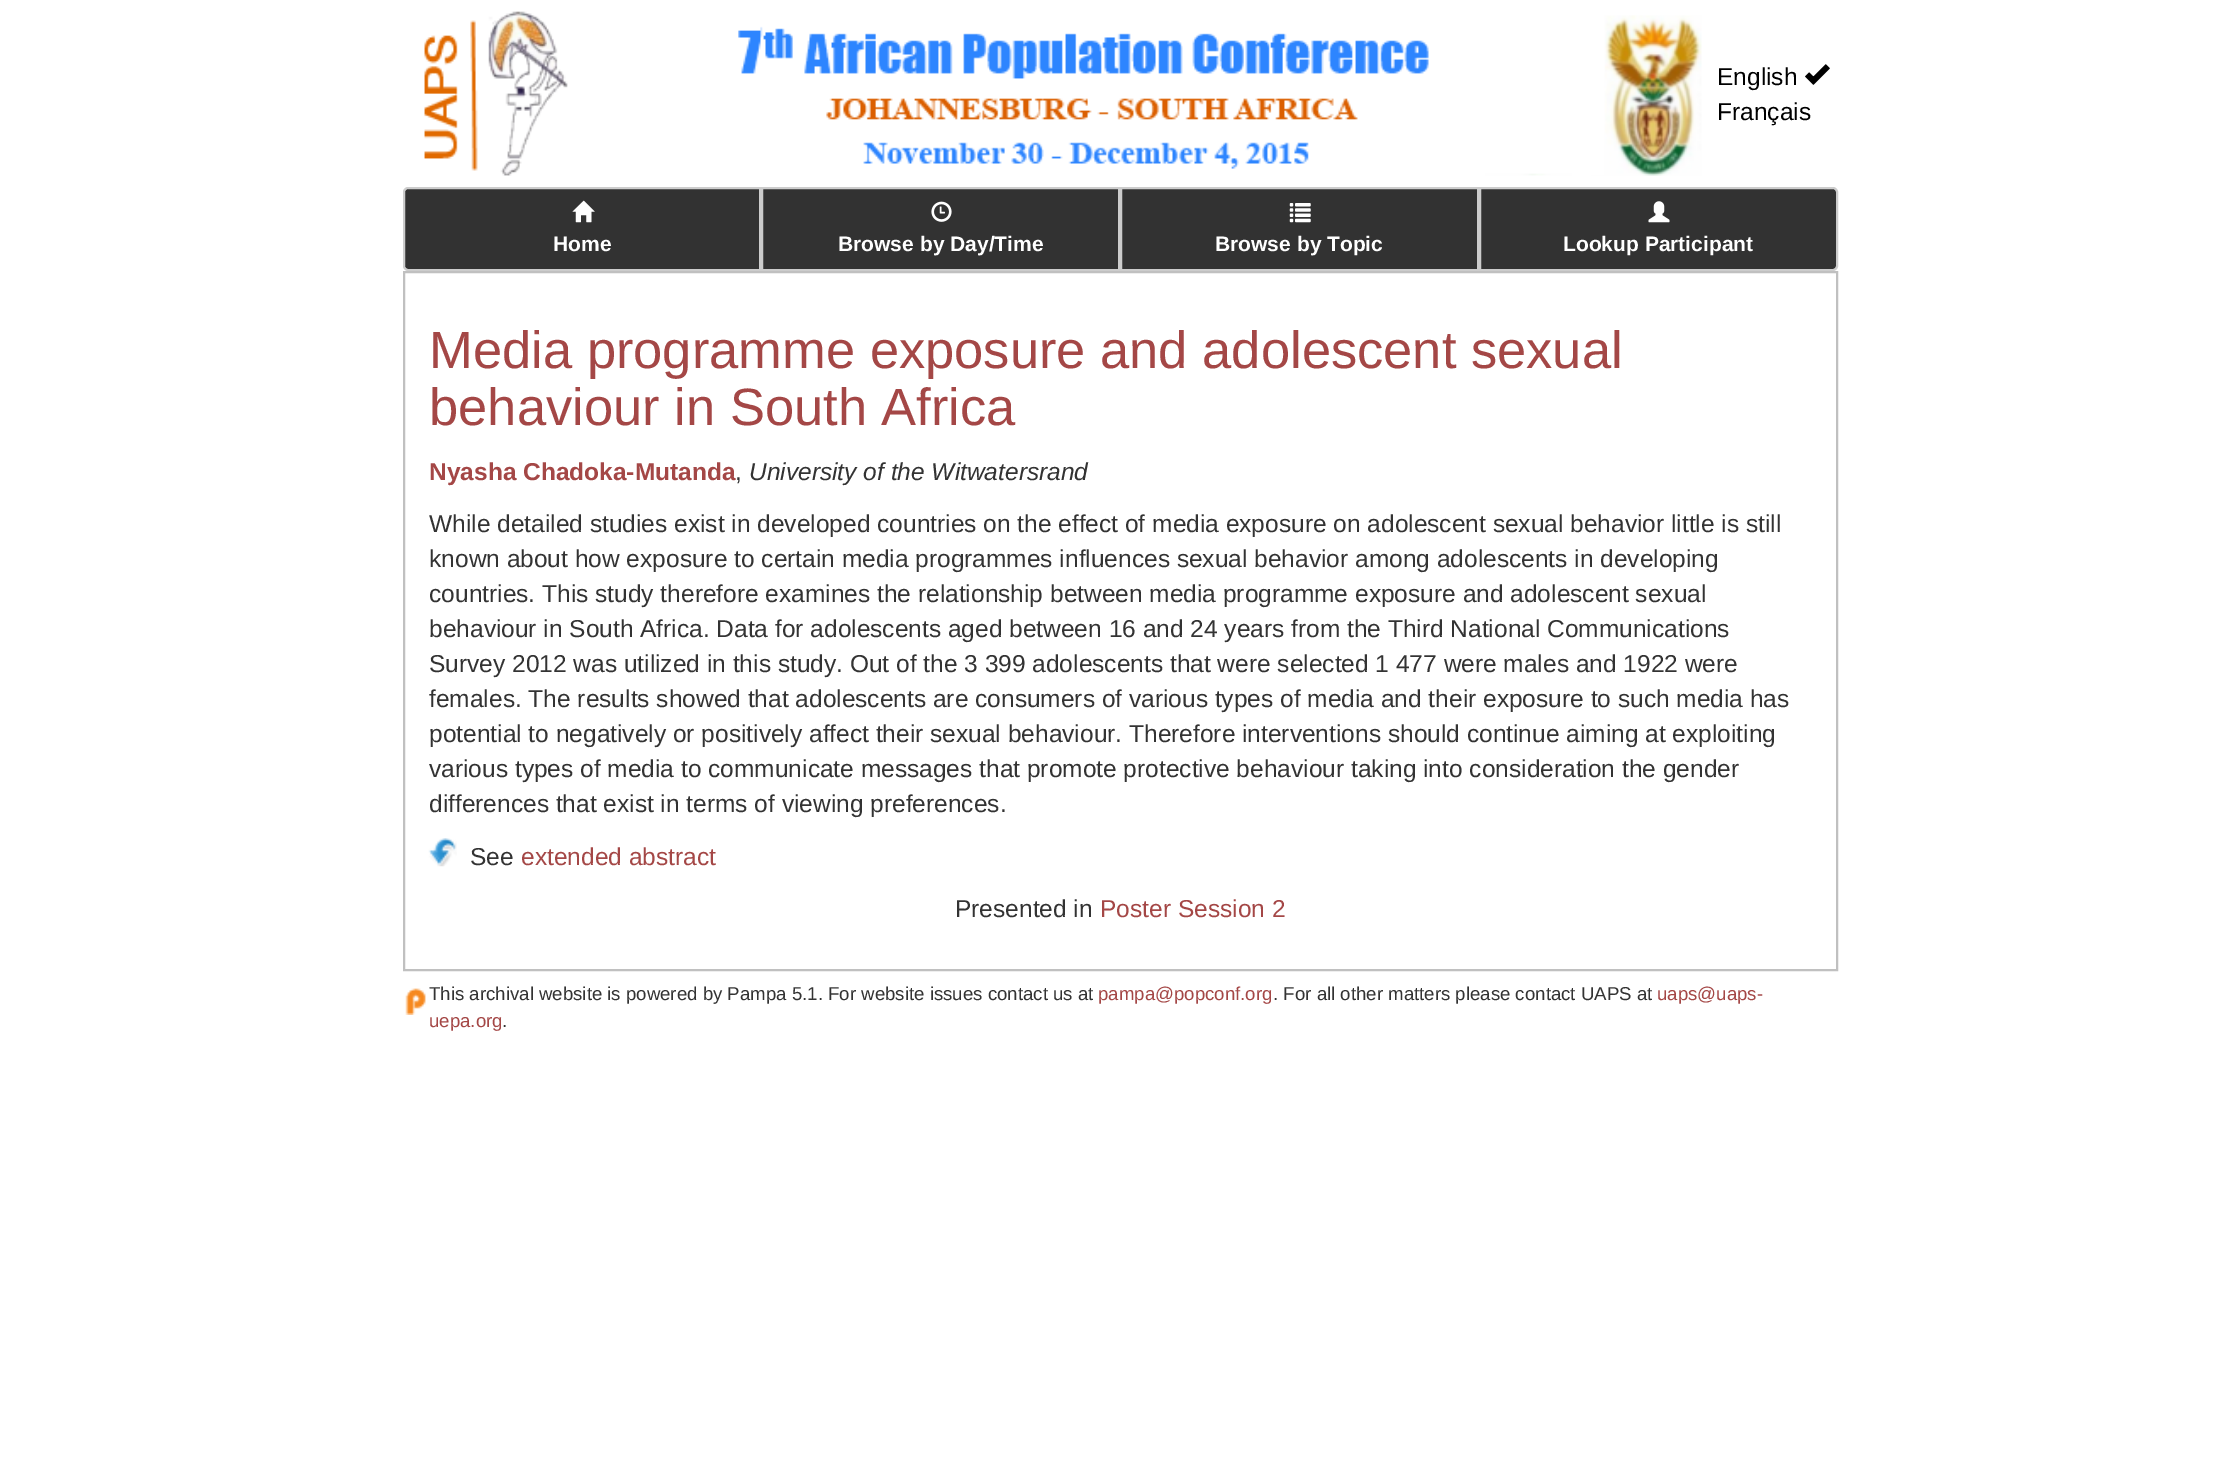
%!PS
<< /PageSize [2239 1464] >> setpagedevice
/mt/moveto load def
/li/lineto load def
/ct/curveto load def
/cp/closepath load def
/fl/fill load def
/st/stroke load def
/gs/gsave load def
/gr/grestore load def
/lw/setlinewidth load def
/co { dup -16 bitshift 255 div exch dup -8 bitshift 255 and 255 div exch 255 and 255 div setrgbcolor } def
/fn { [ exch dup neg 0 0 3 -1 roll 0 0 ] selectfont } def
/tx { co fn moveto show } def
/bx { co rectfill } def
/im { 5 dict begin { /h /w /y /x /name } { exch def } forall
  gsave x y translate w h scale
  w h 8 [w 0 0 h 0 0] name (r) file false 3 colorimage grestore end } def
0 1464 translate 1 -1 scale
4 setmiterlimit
0 0 2239 1464 16#FFFFFF bx
(media/1.raw) 424 11 1278 165 im
(media/2.raw) 1805 64 25 21 im
16#323232 co
408 188 mt 760 188 li 760 270 li 408 270 li 406 270 404 268 404 266 ct 404 192 li 404 190 406 188 408 188 ct cp gs fl gr
16#CCCCCC co
2 lw
st
(media/3.raw) 572 200 23 23 im
16#323232 co
762 188 mt 1119 188 li 1119 270 li 762 270 li cp gs fl gr
16#CCCCCC co
st
(media/4.raw) 931 201 21 21 im
16#323232 co
1121 188 mt 1478 188 li 1478 270 li 1121 270 li cp gs fl gr
16#CCCCCC co
st
(media/5.raw) 1289 203 22 20 im
16#323232 co
1480 188 mt 1833 188 li 1835 188 1837 190 1837 192 ct 1837 266 li 1837 268 1835 270 1833 270 ct 1480 270 li cp gs fl gr
16#CCCCCC co
st
(media/6.raw) 1648 201 22 22 im
16#C0C0C0 co
404 272 1433 698 rectstroke
(media/7.raw) 428 838 29 29 im
(media/8.raw) 405 988 21 27 im
(English) 1717 85 /LiberationSans-Regular 24.5 16#000000 tx
(Français) 1717 120 /LiberationSans-Regular 24.5 16#000000 tx
(Home) 553 251 /LiberationSans-Bold 21 16#FFFFFF tx
(Browse by Day/Time) 838 251 /LiberationSans-Bold 21 16#FFFFFF tx
(Browse by Topic) 1215 251 /LiberationSans-Bold 21 16#FFFFFF tx
(Lookup Participant) 1563 251 /LiberationSans-Bold 21 16#FFFFFF tx
(Media programme exposure and adolescent sexual) 429 368 /LiberationSans-Regular 52.5 16#A44746 tx
(behaviour in South Africa) 429 425 /LiberationSans-Regular 52.5 16#A44746 tx
(Nyasha Chadoka-Mutanda) 429 480 /LiberationSans-Bold 24.5 16#A44746 tx
(,) 735 480 /LiberationSans-Regular 24.5 16#333333 tx
(University of the Witwatersrand) 749 480 /LiberationSans-Italic 24.5 16#333333 tx
(While detailed studies exist in developed countries on the effect of media exposure on adolescent sexual behavior little is still) 429 532 /LiberationSans-Regular 24.5 16#333333 tx
(known about how exposure to certain media programmes influences sexual behavior among adolescents in developing) 429 567 /LiberationSans-Regular 24.5 16#333333 tx
(countries. This study therefore examines the relationship between media programme exposure and adolescent sexual) 429 602 /LiberationSans-Regular 24.5 16#333333 tx
(behaviour in South Africa. Data for adolescents aged between 16 and 24 years from the Third National Communications) 429 637 /LiberationSans-Regular 24.5 16#333333 tx
(Survey 2012 was utilized in this study. Out of the 3 399 adolescents that were selected 1 477 were males and 1922 were) 429 672 /LiberationSans-Regular 24.5 16#333333 tx
(females. The results showed that adolescents are consumers of various types of media and their exposure to such media has) 429 707 /LiberationSans-Regular 24.5 16#333333 tx
(potential to negatively or positively affect their sexual behaviour. Therefore interventions should continue aiming at exploiting) 429 742 /LiberationSans-Regular 24.5 16#333333 tx
(various types of media to communicate messages that promote protective behaviour taking into consideration the gender) 429 777 /LiberationSans-Regular 24.5 16#333333 tx
(differences that exist in terms of viewing preferences.) 429 812 /LiberationSans-Regular 24.5 16#333333 tx
(See) 470 865 /LiberationSans-Regular 24.5 16#333333 tx
(extended abstract) 521 865 /LiberationSans-Regular 24.5 16#A44746 tx
(Presented in) 955 917 /LiberationSans-Regular 24.5 16#333333 tx
(Poster Session 2) 1100 917 /LiberationSans-Regular 24.5 16#A44746 tx
(This archival website is powered by Pampa 5.1. For website issues contact us at) 429 1000 /LiberationSans-Regular 18.65 16#333333 tx
(pampa@popconf.org) 1098 1000 /LiberationSans-Regular 18.65 16#A44746 tx
(. For all other matters please contact UAPS at) 1273 1000 /LiberationSans-Regular 18.65 16#333333 tx
(uaps@uaps-) 1657 1000 /LiberationSans-Regular 18.65 16#A44746 tx
(uepa.org) 429 1027 /LiberationSans-Regular 18.65 16#A44746 tx
(.) 502 1027 /LiberationSans-Regular 18.65 16#333333 tx
showpage
